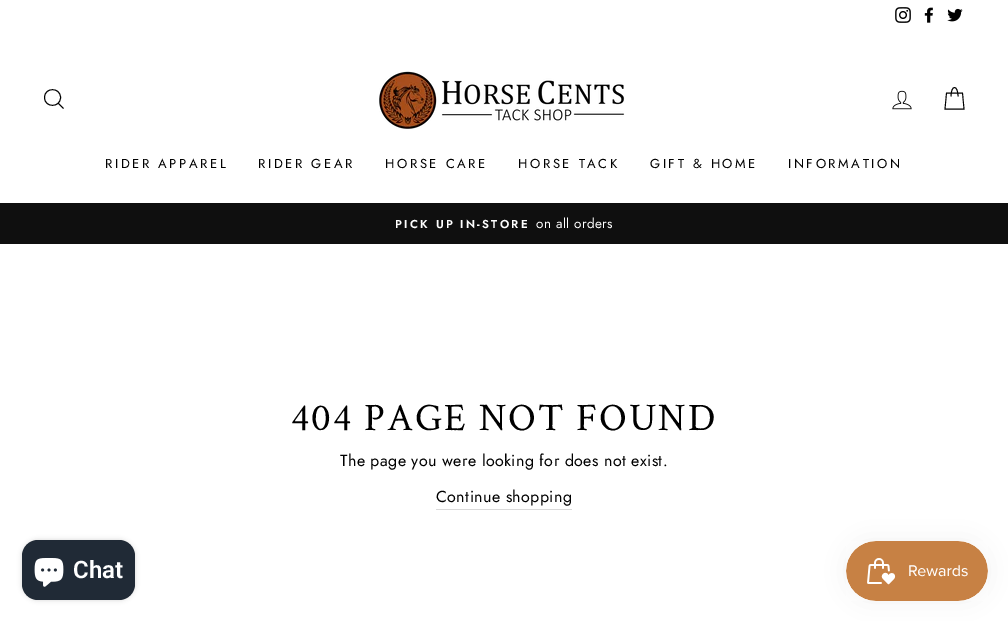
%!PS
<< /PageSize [1008 621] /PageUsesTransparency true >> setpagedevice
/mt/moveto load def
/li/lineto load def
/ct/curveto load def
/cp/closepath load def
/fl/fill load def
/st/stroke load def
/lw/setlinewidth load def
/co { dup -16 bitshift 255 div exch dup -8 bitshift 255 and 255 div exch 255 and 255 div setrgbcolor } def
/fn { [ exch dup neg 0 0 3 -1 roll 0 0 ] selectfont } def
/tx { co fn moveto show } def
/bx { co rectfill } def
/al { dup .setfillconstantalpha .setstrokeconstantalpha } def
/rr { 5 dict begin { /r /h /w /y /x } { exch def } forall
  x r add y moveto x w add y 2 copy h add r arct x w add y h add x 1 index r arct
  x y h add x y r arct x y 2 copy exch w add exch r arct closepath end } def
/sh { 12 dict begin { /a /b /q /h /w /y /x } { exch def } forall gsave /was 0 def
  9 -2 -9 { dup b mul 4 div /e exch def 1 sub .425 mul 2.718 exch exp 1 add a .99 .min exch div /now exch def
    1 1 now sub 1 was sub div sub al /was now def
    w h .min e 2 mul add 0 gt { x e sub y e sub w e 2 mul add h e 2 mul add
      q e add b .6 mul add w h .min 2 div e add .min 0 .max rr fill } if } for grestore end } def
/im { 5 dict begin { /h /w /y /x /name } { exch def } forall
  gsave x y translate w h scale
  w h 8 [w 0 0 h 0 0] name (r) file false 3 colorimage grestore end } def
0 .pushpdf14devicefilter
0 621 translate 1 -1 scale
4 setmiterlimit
0 0 1008 621 16#FFFFFF bx
(media/1.raw) 895 7 16 16 im
(media/2.raw) 924 7 9 16 im
(media/3.raw) 947 8 16 14 im
16#000000 co
.9 lw
60.5 97.5 mt 60.5 108 44.5 108 44.5 97.5 ct 44.5 87 60.5 87 60.5 97.5 ct cp 63.5 108.5 mt 58.5 103.5 li st
(media/4.raw) 379 71 246 58 im
(media/5.raw) 892 90 20 20 im
951 96.5 mt 951 84.5 958 84.5 958 96.5 ct 946.5 93 mt 962.5 93 li 964 109 li 945 109 li cp st
0 203 1008 41 16#0F0F0F bx
436 509 136 1 16#D9D9D9 bx
16#000000 co
22 540 113 60 16 2.5 .15 sh
16#202A36 co
22 540 113 60 16 rr fl
(media/6.raw) 34 558 30 29 im
16#000000 co
846 541 142 60 30 12.5 .05 sh
(media/7.raw) 846 541 142 60 im
/Jost-Regular 13 fn
105 168 mt 2.6 0 (RIDER APPAREL) ashow
258 168 mt 2.6 0 (RIDER GEAR) ashow
385 168 mt 2.6 0 (HORSE CARE) ashow
518 168 mt 2.6 0 (HORSE TACK) ashow
650 168 mt 2.6 0 (GIFT & HOME) ashow
788 168 mt 2.6 0 (INFORMATION) ashow
/Jost-SemiBold 11.5 fn
16#FFFFFF co
395 228 mt 2.25 0 (PICK UP IN-STORE) ashow
/Jost-Regular 13.5 fn
536 228 mt .4 0 (on all orders) ashow
/CrimsonText-Regular 39 fn
16#000000 co
291 430 mt 2 0 (404 PAGE NOT FOUND) ashow
/Jost-Regular 16 fn
340 466 mt .4 0 (The page you were looking for does not exist.) ashow
436 502 mt .4 0 (Continue shopping) ashow
(Chat) 73 578 /Roboto-SemiBold 24 16#FFFFFF tx
.poppdf14devicefilter showpage
